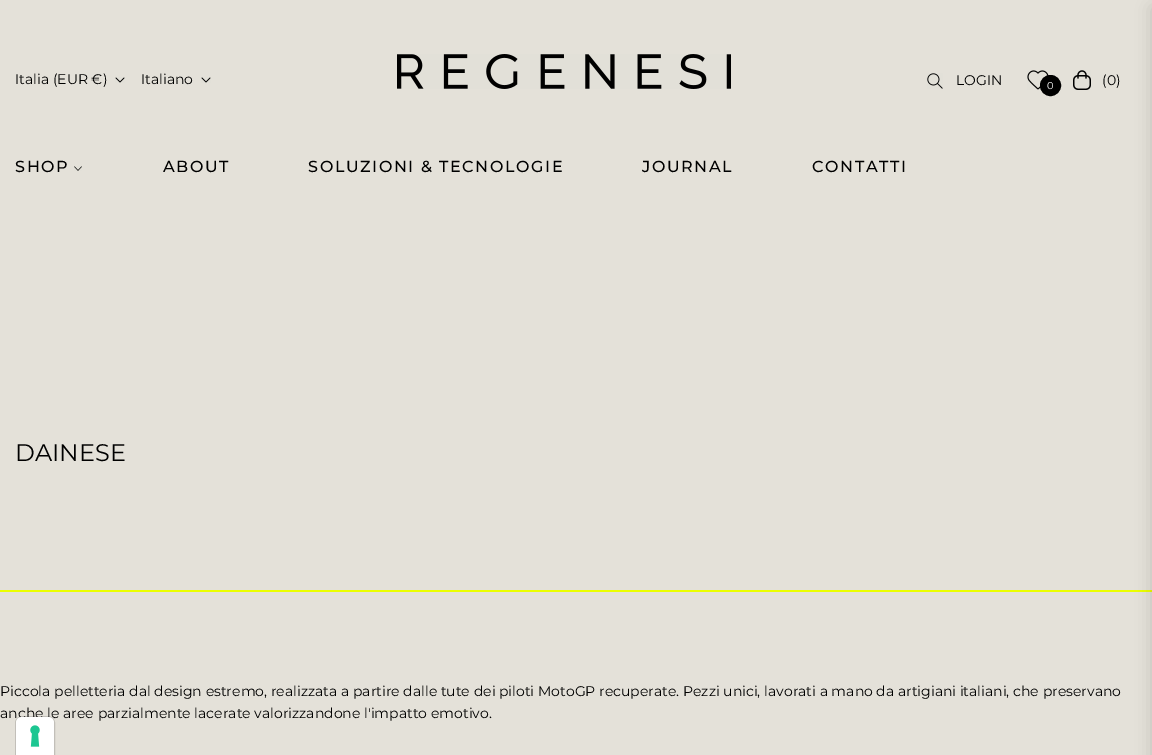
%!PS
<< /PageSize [1152 755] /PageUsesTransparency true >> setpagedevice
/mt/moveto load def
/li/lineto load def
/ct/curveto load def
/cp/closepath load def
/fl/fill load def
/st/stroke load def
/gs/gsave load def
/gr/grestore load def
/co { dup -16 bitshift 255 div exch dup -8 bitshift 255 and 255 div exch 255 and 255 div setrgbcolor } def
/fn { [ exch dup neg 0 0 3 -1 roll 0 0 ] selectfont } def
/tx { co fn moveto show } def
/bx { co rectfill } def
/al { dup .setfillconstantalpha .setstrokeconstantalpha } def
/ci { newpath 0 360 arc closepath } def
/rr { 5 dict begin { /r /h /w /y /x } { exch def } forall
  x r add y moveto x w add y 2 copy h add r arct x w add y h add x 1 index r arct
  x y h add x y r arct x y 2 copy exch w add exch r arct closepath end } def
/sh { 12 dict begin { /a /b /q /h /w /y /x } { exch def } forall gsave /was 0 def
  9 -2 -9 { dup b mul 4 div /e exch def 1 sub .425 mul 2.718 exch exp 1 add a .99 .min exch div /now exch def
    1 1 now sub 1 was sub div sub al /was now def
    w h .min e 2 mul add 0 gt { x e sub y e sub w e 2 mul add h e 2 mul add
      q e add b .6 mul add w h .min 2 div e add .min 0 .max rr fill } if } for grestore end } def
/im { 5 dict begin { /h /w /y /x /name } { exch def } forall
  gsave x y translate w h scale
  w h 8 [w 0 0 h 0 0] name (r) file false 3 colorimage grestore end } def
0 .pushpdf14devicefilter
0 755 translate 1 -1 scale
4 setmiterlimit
0 0 1152 755 16#E4E1D9 bx
(media/1.raw) 115 77 10 6 im
(media/1.raw) 201 77 10 6 im
(media/2.raw) 397 54 334 35 im
(media/3.raw) 927 73 16 16 im
(media/4.raw) 1027 70 22 20 im
16#000000 co
1050.5 85.5 10 ci gs fl gr
st
(media/5.raw) 1073 70 18 20 im
0 590 1152 2 16#EBFF00 bx
16#000000 co
1152 8 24 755 0 8 .15 sh
(media/6.raw) 74 166 8 5 im
(Italia \(EUR €\)) 15 84 /Montserrat-Regular 14 16#000000 tx
(Italiano) 141 84 /Montserrat-Regular 14 16#000000 tx
(LOGIN) 956 85 /Montserrat-Regular 14 16#000000 tx
(0) 1047 89 /Montserrat-Regular 10 16#FFFFFF tx
(\(0\)) 1102 85 /Montserrat-Regular 14 16#000000 tx
/Montserrat-Medium 16 fn
15 172 mt 1.6 0 (SHOP) ashow
163 172 mt 1.6 0 (ABOUT) ashow
308 172 mt 1.6 0 (SOLUZIONI & TECNOLOGIE) ashow
642 172 mt 1.6 0 (JOURNAL) ashow
812 172 mt 1.6 0 (CONTATTI) ashow
(DAINESE) 15 461 /Montserrat-Regular 24 16#000000 tx
(Piccola pelletteria dal design estremo, realizzata a partire dalle tute dei piloti MotoGP recuperate. Pezzi unici, lavorati a mano da artigiani italiani, che preservano) 0 696 /Montserrat-Regular 14 16#000000 tx
(anche le aree parzialmente lacerate valorizzandone l'impatto emotivo.) 0 718 /Montserrat-Regular 14 16#000000 tx
0.15 al
22 716.5 mt 48 716.5 li 51.5 716.5 54.5 719.5 54.5 723 ct 54.5 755.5 li 15.5 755.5 li 15.5 723 li 15.5 719.5 18.5 716.5 22 716.5 ct cp st
1 al
16#FFFFFF co
22 717 mt 48 717 li 51.5 717 54 719.5 54 723 ct 54 755 li 16 755 li 16 723 li 16 719.5 18.5 717 22 717 ct cp fl
(media/7.raw) 30 725 10 22 im
.poppdf14devicefilter showpage
